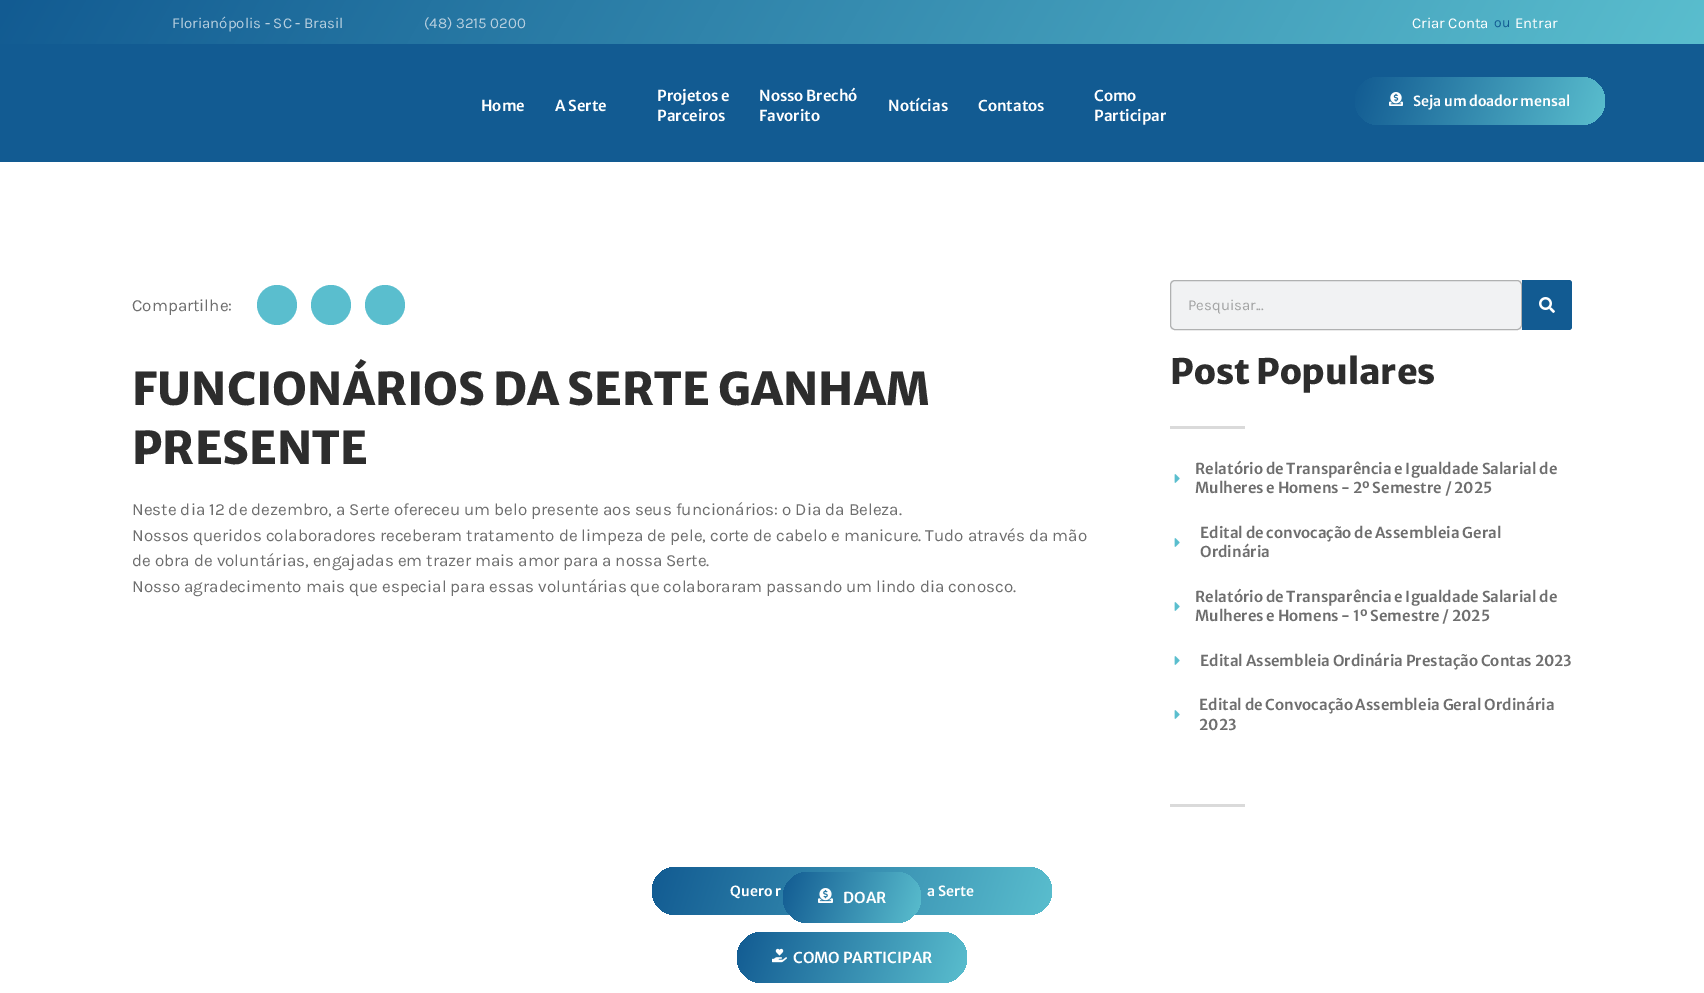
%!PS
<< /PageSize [1704 993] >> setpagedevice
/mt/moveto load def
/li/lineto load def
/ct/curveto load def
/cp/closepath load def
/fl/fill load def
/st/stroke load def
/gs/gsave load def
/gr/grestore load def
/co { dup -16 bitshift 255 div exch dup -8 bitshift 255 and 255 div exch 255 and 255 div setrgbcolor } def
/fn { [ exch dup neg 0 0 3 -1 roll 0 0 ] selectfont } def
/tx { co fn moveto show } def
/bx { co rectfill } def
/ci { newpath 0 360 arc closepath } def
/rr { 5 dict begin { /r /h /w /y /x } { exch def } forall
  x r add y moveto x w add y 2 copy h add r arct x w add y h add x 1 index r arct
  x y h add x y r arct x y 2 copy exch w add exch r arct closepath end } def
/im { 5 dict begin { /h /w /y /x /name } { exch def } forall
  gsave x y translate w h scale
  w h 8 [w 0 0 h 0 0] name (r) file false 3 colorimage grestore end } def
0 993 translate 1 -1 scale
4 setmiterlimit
0 0 1704 993 16#FFFFFF bx
gs 0 0 mt 1704 0 li 1704 44 li 0 44 li cp clip newpath
<< /ShadingType 2 /ColorSpace /DeviceRGB /Coords [203 -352 1501 398] /Extend [true true] /Function << /FunctionType 2 /Domain [0 1] /C0 [.071 .357 .573] /C1 [.353 .745 .808] /N 1 >> >> shfill gr
0 44 1704 118 16#125B92 bx
gs 1355 77 250 48 24 rr clip newpath
<< /ShadingType 2 /ColorSpace /DeviceRGB /Coords [1360 62 1600 140] /Extend [true true] /Function << /FunctionType 2 /Domain [0 1] /C0 [.071 .357 .573] /C1 [.353 .745 .808] /N 1 >> >> shfill gr
(media/1.raw) 1389 92 14 14 im
16#5ABECE co
277 305 20 ci fl
331 305 20 ci fl
385 305 20 ci fl
16#F1F2F3 co
1170 280 402 50 3 rr fl
16#B0B1B1 co
1170.5 280.5 351 49 4.5 rr st
16#125B92 co
1522 280 mt 1569 280 li 1570.5 280 1572 281.5 1572 283 ct 1572 327 li 1572 328.5 1570.5 330 1569 330 ct 1522 330 li cp fl
(media/2.raw) 1539 297 16 16 im
1170 426 75 3 16#DADADA bx
(media/3.raw) 1174 474 6 9 im
(media/3.raw) 1174 538 6 9 im
(media/3.raw) 1174 602 6 9 im
(media/3.raw) 1174 656 6 9 im
(media/3.raw) 1174 710 6 9 im
1170 804 75 3 16#DADADA bx
gs 652 867 400 48 24 rr clip newpath
<< /ShadingType 2 /ColorSpace /DeviceRGB /Coords [664 830 1040 952] /Extend [true true] /Function << /FunctionType 2 /Domain [0 1] /C0 [.071 .357 .573] /C1 [.353 .745 .808] /N 1 >> >> shfill gr
gs 783 872 138 51 25.5 rr clip newpath
<< /ShadingType 2 /ColorSpace /DeviceRGB /Coords [782 875 922 920] /Extend [true true] /Function << /FunctionType 2 /Domain [0 1] /C0 [.071 .357 .573] /C1 [.353 .745 .808] /N 1 >> >> shfill gr
(media/4.raw) 818 888 15 15 im
gs 737 932 230 51 25.5 rr clip newpath
<< /ShadingType 2 /ColorSpace /DeviceRGB /Coords [740 921 964 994] /Extend [true true] /Function << /FunctionType 2 /Domain [0 1] /C0 [.071 .357 .573] /C1 [.353 .745 .808] /N 1 >> >> shfill gr
(media/5.raw) 772 948 15 15 im
(Florianópolis - SC - Brasil) 172 28 /Karla-Regular 15 16#B7CFDF tx
(\(48\) 3215 0200) 424 28 /Karla-Regular 15 16#B7CFDF tx
(Criar Conta) 1412 28 /Karla-Regular 15 16#FFFFFF tx
(ou) 1494 27 /Karla-Regular 14 16#125B92 tx
(Entrar) 1515 28 /Karla-Regular 15 16#FFFFFF tx
(Home) 481 111 /MerriweatherSans-SemiBold 15 16#FFFFFF tx
(A Serte) 555 111 /MerriweatherSans-SemiBold 15 16#FFFFFF tx
(Projetos e) 657 101 /MerriweatherSans-SemiBold 15 16#FFFFFF tx
(Parceiros) 657 121 /MerriweatherSans-SemiBold 15 16#FFFFFF tx
(Nosso Brechó) 759 101 /MerriweatherSans-SemiBold 15 16#FFFFFF tx
(Favorito) 759 121 /MerriweatherSans-SemiBold 15 16#FFFFFF tx
(Notícias) 888 111 /MerriweatherSans-SemiBold 15 16#FFFFFF tx
(Contatos) 978 111 /MerriweatherSans-SemiBold 15 16#FFFFFF tx
(Como) 1094 101 /MerriweatherSans-SemiBold 15 16#FFFFFF tx
(Participar) 1094 121 /MerriweatherSans-SemiBold 15 16#FFFFFF tx
(Seja um doador mensal) 1413 106 /MerriweatherSans-SemiBold 14 16#FFFFFF tx
(Compartilhe:) 132 311 /Karla-Regular 17 16#6E6E6E tx
(FUNCIONÁRIOS DA SERTE GANHAM) 132 405 /MerriweatherSans-ExtraBold 45 16#2D2D2D tx
(PRESENTE) 132 464 /MerriweatherSans-ExtraBold 45 16#2D2D2D tx
(Neste dia 12 de dezembro, a Serte ofereceu um belo presente aos seus funcionários: o Dia da Beleza.) 132 515 /Karla-Regular 17 16#6E6E6E tx
(Nossos queridos colaboradores receberam tratamento de limpeza de pele, corte de cabelo e manicure. Tudo através da mão) 132 541 /Karla-Regular 17 16#6E6E6E tx
(de obra de voluntárias, engajadas em trazer mais amor para a nossa Serte.) 132 566 /Karla-Regular 17 16#6E6E6E tx
(Nosso agradecimento mais que especial para essas voluntárias que colaboraram passando um lindo dia conosco.) 132 592 /Karla-Regular 17 16#6E6E6E tx
(Pesquisar...) 1188 310 /Karla-Regular 15 16#A2A3A3 tx
(Post Populares) 1170 384 /MerriweatherSans-ExtraBold 35 16#2D2D2D tx
(Relatório de Transparência e Igualdade Salarial de) 1195 474 /MerriweatherSans-SemiBold 15 16#6E6E6E tx
(Mulheres e Homens - 2º Semestre / 2025) 1195 493 /MerriweatherSans-SemiBold 15 16#6E6E6E tx
(Edital de convocação de Assembleia Geral) 1200 538 /MerriweatherSans-SemiBold 15 16#6E6E6E tx
(Ordinária) 1200 557 /MerriweatherSans-SemiBold 15 16#6E6E6E tx
(Relatório de Transparência e Igualdade Salarial de) 1195 602 /MerriweatherSans-SemiBold 15 16#6E6E6E tx
(Mulheres e Homens - 1º Semestre / 2025) 1195 621 /MerriweatherSans-SemiBold 15 16#6E6E6E tx
(Edital Assembleia Ordinária Prestação Contas 2023) 1200 666 /MerriweatherSans-SemiBold 15 16#6E6E6E tx
(Edital de Convocação Assembleia Geral Ordinária) 1199 710 /MerriweatherSans-SemiBold 15 16#6E6E6E tx
(2023) 1199 730 /MerriweatherSans-SemiBold 15 16#6E6E6E tx
(Quero r) 730 896 /MerriweatherSans-SemiBold 14 16#FFFFFF tx
(a Serte) 927 896 /MerriweatherSans-SemiBold 14 16#FFFFFF tx
(DOAR) 843 903 /MerriweatherSans-SemiBold 15 16#FFFFFF tx
(COMO PARTICIPAR) 793 963 /MerriweatherSans-SemiBold 15 16#FFFFFF tx
showpage
